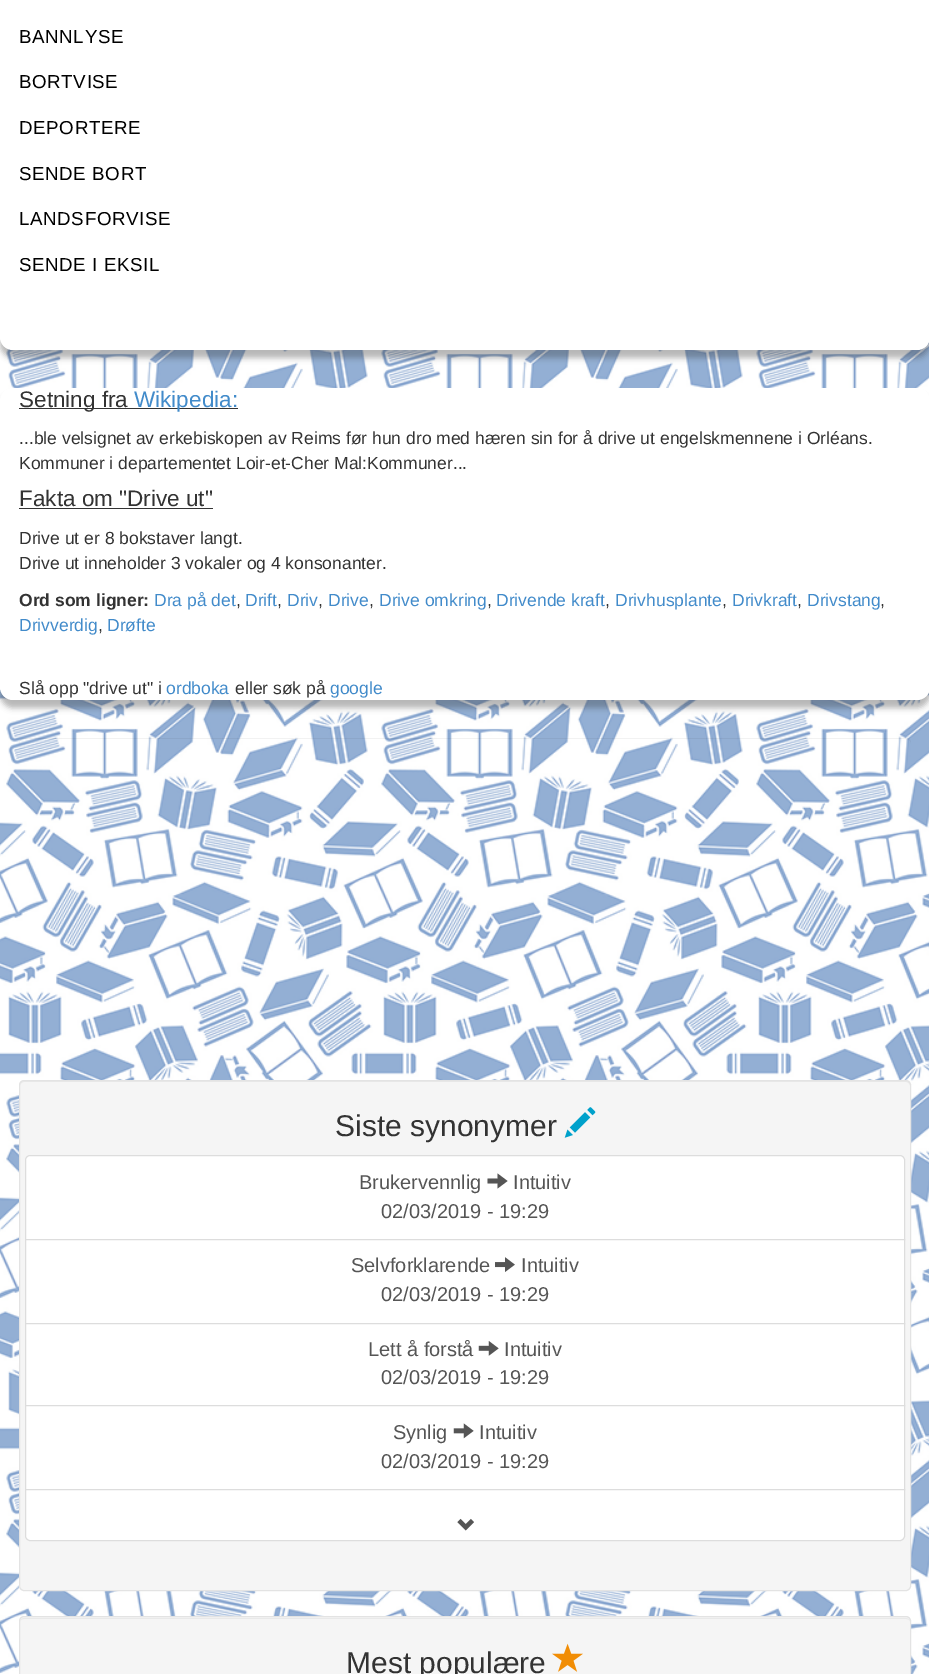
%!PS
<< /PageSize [929 1674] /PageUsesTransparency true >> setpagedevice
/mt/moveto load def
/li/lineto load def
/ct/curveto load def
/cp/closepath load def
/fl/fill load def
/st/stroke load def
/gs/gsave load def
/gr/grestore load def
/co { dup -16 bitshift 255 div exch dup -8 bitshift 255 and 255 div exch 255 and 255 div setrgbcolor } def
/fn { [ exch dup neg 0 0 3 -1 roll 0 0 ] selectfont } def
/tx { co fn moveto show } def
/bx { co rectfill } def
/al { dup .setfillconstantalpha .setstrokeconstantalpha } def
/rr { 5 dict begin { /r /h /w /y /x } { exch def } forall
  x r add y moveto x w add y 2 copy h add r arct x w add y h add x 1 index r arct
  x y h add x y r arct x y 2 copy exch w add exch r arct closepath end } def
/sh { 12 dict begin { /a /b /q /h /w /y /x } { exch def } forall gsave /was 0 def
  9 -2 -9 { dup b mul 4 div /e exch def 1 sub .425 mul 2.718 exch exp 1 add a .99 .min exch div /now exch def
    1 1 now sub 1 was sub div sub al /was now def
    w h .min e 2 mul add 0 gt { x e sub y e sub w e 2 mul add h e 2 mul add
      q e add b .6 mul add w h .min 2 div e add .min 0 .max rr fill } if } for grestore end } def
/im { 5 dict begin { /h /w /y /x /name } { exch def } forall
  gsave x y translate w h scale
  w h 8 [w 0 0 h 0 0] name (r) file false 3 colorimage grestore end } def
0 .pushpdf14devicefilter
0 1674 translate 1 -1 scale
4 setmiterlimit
0 0 929 1674 16#FFFFFF bx
(media/1.raw) 0 337 929 1337 im
16#323232 co
0 -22 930 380 13 3 .35 sh
16#FFFFFF co
0 -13 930 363 13 rr fl
16#323232 co
0 395 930 313 13 3 .35 sh
16#FFFFFF co
0 388 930 312 13 rr fl
19 408 219 1 16#333333 bx
19 508 194 1 16#333333 bx
0.05 al
16#000000 co
24 739 mt 906 739 li 909 739 911 741 911 744 ct 911 743 li 911 740 909 738 906 738 ct 24 738 li 21 738 19 740 19 743 ct 19 744 li 19 741 21 739 24 739 ct cp fl
1 al
16#F5F5F5 co
19 1080 892 511 5 rr fl
16#E9E9E9 co
24 1082 mt 906 1082 li 908 1082 910 1084 910 1086 ct 910 1083 909 1081 906 1081 ct 24 1081 li 21 1081 20 1083 20 1086 ct 20 1084 22 1082 24 1082 ct cp fl
16#E3E3E3 co
19.5 1080.5 891 510 4.5 rr st
(media/2.raw) 564 1107 32 31 im
16#FFFFFF co
30 1155.5 mt 900 1155.5 li 902.5 1155.5 904.5 1157.5 904.5 1160 ct 904.5 1239.5 li 25.5 1239.5 li 25.5 1160 li 25.5 1157.5 27.5 1155.5 30 1155.5 ct cp gs fl gr
16#DDDDDD co
st
16#555555 co
487.5 1183.5 mt 487.5 1178.5 li 497.5 1178.5 li 497.5 1173.5 li 507.5 1181 li 497.5 1188.5 li 497.5 1183.5 li cp fl
16#FFFFFF co
25.5 1239.5 mt 904.5 1239.5 li 904.5 1323.5 li 25.5 1323.5 li cp gs fl gr
16#DDDDDD co
st
(media/3.raw) 495 1257 20 15 im
16#FFFFFF co
25.5 1323.5 mt 904.5 1323.5 li 904.5 1405.5 li 25.5 1405.5 li cp gs fl gr
16#DDDDDD co
st
(media/4.raw) 478 1341 21 15 im
16#FFFFFF co
25.5 1405.5 mt 904.5 1405.5 li 904.5 1489.5 li 25.5 1489.5 li cp gs fl gr
16#DDDDDD co
st
(media/5.raw) 453 1423 21 16 im
16#FFFFFF co
25.5 1489.5 mt 904.5 1489.5 li 904.5 1536 li 904.5 1538.5 902.5 1540.5 900 1540.5 ct 30 1540.5 li 27.5 1540.5 25.5 1538.5 25.5 1536 ct cp gs fl gr
16#DDDDDD co
st
(media/6.raw) 457 1518 17 13 im
16#F5F5F5 co
19 1616 892 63 5 rr fl
16#E9E9E9 co
24 1619 mt 906 1619 li 908 1619 910 1620 910 1622 ct 910 1620 908 1618 906 1618 ct 24 1618 li 22 1618 20 1620 20 1622 ct 20 1620 22 1619 24 1619 ct cp fl
16#E3E3E3 co
19.5 1616.5 891 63 4.5 rr st
(media/7.raw) 552 1643 31 29 im
/LiberationSans-Regular 18.75 fn
16#000000 co
19 43 mt .6 0 (BANNLYSE) ashow
19 88 mt .6 0 (BORTVISE) ashow
19 134 mt .6 0 (DEPORTERE) ashow
19 180 mt .6 0 (SENDE BORT) ashow
19 225 mt .6 0 (LANDSFORVISE) ashow
19 271 mt .6 0 (SENDE I EKSIL) ashow
(Setning fra) 19 407 /LiberationSans-Regular 22.5 16#333333 tx
(Wikipedia:) 134 407 /LiberationSans-Regular 22.5 16#428BCA tx
(...ble velsignet av erkebiskopen av Reims før hun dro med hæren sin for å drive ut engelskmennene i Orléans.) 19 444 /LiberationSans-Regular 17.5 16#333333 tx
(Kommuner i departementet Loir-et-Cher Mal:Kommuner...) 19 469 /LiberationSans-Regular 17.5 16#333333 tx
(Fakta om "Drive ut") 19 506 /LiberationSans-Regular 22.5 16#333333 tx
(Drive ut er 8 bokstaver langt.) 19 544 /LiberationSans-Regular 17.5 16#333333 tx
(Drive ut inneholder 3 vokaler og 4 konsonanter.) 19 569 /LiberationSans-Regular 17.5 16#333333 tx
(Ord som ligner:) 19 606 /LiberationSans-Bold 17.5 16#333333 tx
(Dra på det) 154 606 /LiberationSans-Regular 17.5 16#428BCA tx
(,) 236 606 /LiberationSans-Regular 17.5 16#333333 tx
(Drift) 245 606 /LiberationSans-Regular 17.5 16#428BCA tx
(,) 277 606 /LiberationSans-Regular 17.5 16#333333 tx
(Driv) 287 606 /LiberationSans-Regular 17.5 16#428BCA tx
(,) 318 606 /LiberationSans-Regular 17.5 16#333333 tx
(Drive) 328 606 /LiberationSans-Regular 17.5 16#428BCA tx
(,) 369 606 /LiberationSans-Regular 17.5 16#333333 tx
(Drive omkring) 379 606 /LiberationSans-Regular 17.5 16#428BCA tx
(,) 487 606 /LiberationSans-Regular 17.5 16#333333 tx
(Drivende kraft) 496 606 /LiberationSans-Regular 17.5 16#428BCA tx
(,) 605 606 /LiberationSans-Regular 17.5 16#333333 tx
(Drivhusplante) 615 606 /LiberationSans-Regular 17.5 16#428BCA tx
(,) 722 606 /LiberationSans-Regular 17.5 16#333333 tx
(Drivkraft) 732 606 /LiberationSans-Regular 17.5 16#428BCA tx
(,) 797 606 /LiberationSans-Regular 17.5 16#333333 tx
(Drivstang) 807 606 /LiberationSans-Regular 17.5 16#428BCA tx
(,) 880 606 /LiberationSans-Regular 17.5 16#333333 tx
(Drivverdig) 19 631 /LiberationSans-Regular 17.5 16#428BCA tx
(,) 98 631 /LiberationSans-Regular 17.5 16#333333 tx
(Drøfte) 107 631 /LiberationSans-Regular 17.5 16#428BCA tx
(Slå opp "drive ut" i) 19 694 /LiberationSans-Regular 17.5 16#333333 tx
(ordboka) 166 694 /LiberationSans-Regular 17.5 16#428BCA tx
(eller søk på) 235 694 /LiberationSans-Regular 17.5 16#333333 tx
(google) 330 694 /LiberationSans-Regular 17.5 16#428BCA tx
(Siste synonymer) 335 1136 /LiberationSans-Regular 30 16#333333 tx
(Brukervennlig) 359 1189 /LiberationSans-Regular 20 16#555555 tx
(Intuitiv) 513 1189 /LiberationSans-Regular 20 16#555555 tx
(02/03/2019 - 19:29) 381 1218 /LiberationSans-Regular 20 16#555555 tx
(Selvforklarende) 351 1272 /LiberationSans-Regular 20 16#555555 tx
(Intuitiv) 521 1272 /LiberationSans-Regular 20 16#555555 tx
(02/03/2019 - 19:29) 381 1301 /LiberationSans-Regular 20 16#555555 tx
(Lett å forstå) 368 1356 /LiberationSans-Regular 20 16#555555 tx
(Intuitiv) 504 1356 /LiberationSans-Regular 20 16#555555 tx
(02/03/2019 - 19:29) 381 1384 /LiberationSans-Regular 20 16#555555 tx
(Synlig) 393 1439 /LiberationSans-Regular 20 16#555555 tx
(Intuitiv) 479 1439 /LiberationSans-Regular 20 16#555555 tx
(02/03/2019 - 19:29) 381 1468 /LiberationSans-Regular 20 16#555555 tx
(Mest populære) 346 1673 /LiberationSans-Regular 30 16#333333 tx
.poppdf14devicefilter showpage
